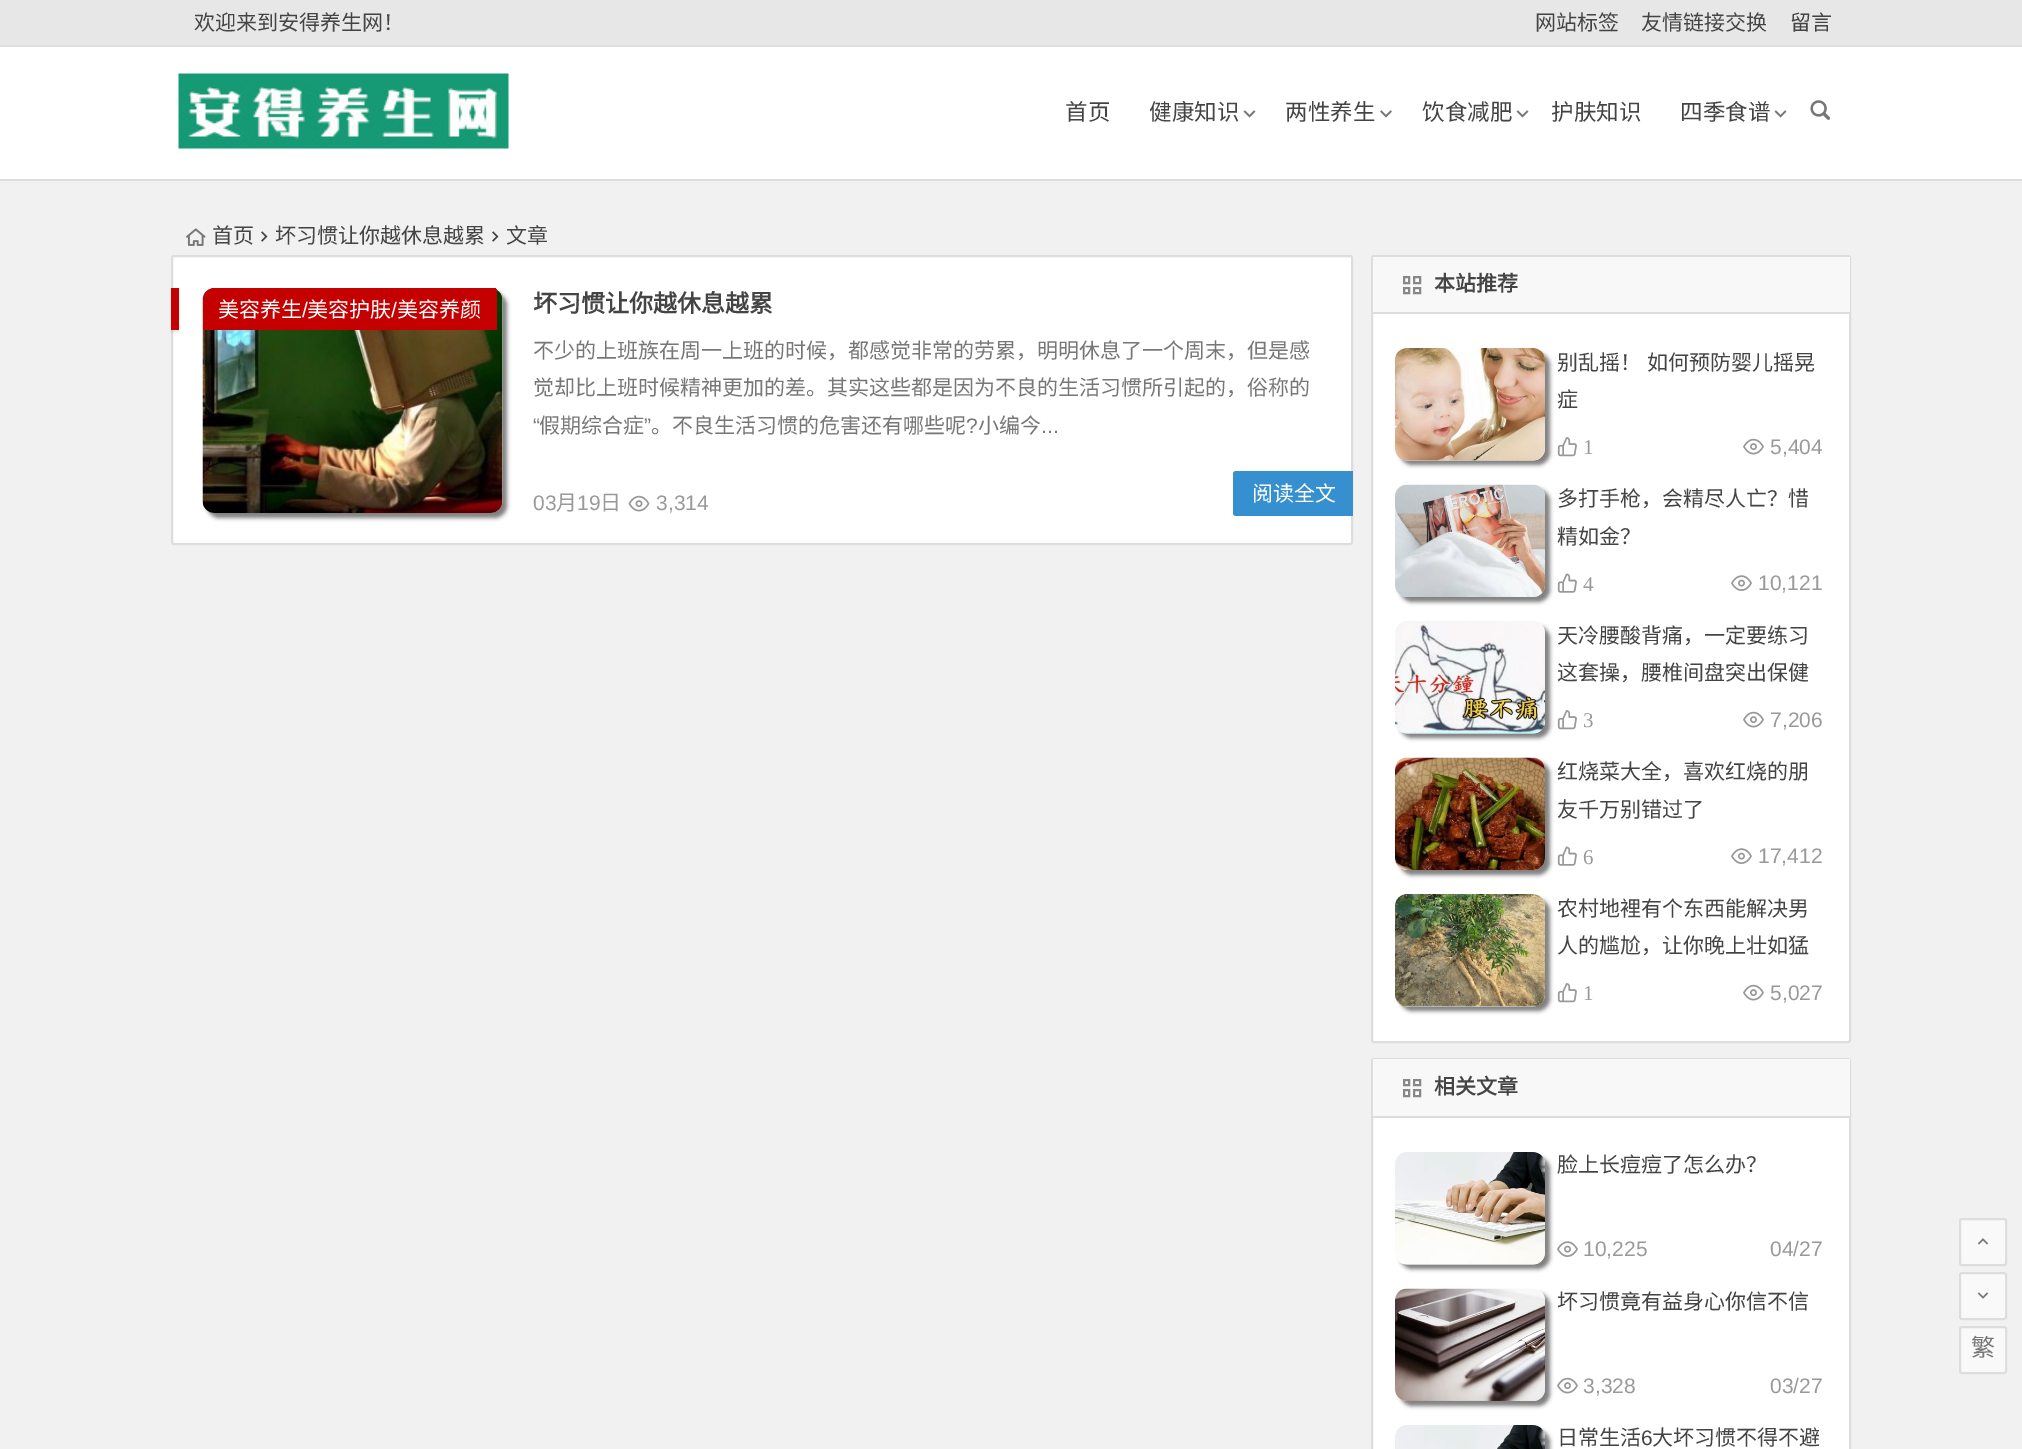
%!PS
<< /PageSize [2022 1449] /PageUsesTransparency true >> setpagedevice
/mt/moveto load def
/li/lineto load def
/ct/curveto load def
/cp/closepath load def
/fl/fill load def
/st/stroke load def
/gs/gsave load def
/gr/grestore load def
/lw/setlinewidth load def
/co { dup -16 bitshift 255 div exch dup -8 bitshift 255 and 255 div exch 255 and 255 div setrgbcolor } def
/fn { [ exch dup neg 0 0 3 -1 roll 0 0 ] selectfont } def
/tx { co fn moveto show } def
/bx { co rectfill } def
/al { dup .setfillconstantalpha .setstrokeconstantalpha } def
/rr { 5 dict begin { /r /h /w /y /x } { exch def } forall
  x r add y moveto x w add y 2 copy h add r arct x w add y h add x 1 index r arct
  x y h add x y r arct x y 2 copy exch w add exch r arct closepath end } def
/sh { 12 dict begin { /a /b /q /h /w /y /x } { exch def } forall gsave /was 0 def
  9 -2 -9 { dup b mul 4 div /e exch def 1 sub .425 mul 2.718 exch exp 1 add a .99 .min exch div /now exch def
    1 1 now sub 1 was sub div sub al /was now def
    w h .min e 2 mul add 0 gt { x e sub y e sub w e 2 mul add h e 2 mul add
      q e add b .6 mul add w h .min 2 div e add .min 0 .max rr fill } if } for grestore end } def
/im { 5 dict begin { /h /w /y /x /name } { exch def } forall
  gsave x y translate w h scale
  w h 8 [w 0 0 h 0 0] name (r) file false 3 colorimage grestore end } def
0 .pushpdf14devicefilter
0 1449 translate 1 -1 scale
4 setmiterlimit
0 0 2022 1449 16#F1F1F1 bx
0 0 2022 45 16#E7E7E7 bx
0 45 2022 2 16#DEDEDE bx
0 47 2022 132 16#FFFFFF bx
0 179 2022 2 16#DDDDDD bx
(media/1.raw) 178 73 331 76 im
(media/2.raw) 1243 110 13 8 im
(media/3.raw) 1380 110 12 8 im
(media/2.raw) 1516 110 13 8 im
(media/2.raw) 1774 110 13 8 im
(media/4.raw) 1810 100 21 20 im
(media/5.raw) 186 228 20 18 im
(media/6.raw) 261 231 7 11 im
(media/6.raw) 492 231 7 11 im
16#FFFFFF co
172 256 1180 288 2 rr gs fl gr
16#DDDDDD co
2 lw
st
16#000000 co
207 293 300 225 12 2 .5 sh
(media/7.raw) 202 288 301 225 im
gs
203 288 300 225 12 rr clip newpath
16#C40000 co
215 288 mt 497 288 li 497 330 li 203 330 li 203 300 li 203 293.5 208.5 288 215 288 ct cp fl
gr
171 290 8 42 0 1 .1 sh
171 288 8 42 16#C40000 bx
(media/8.raw) 628 495 22 17 im
16#3690CF co
1236 471 mt 1353 471 li 1353 516 li 1236 516 li 1234.5 516 1233 514.5 1233 513 ct 1233 474 li 1233 472.5 1234.5 471 1236 471 ct cp fl
16#FFFFFF co
1372 256 478 786 2 rr gs fl gr
16#DDDDDD co
st
1373 257 477 55 16#F8F8F8 bx
1373 312 477 2 16#DDDDDD bx
16#FFFFFF co
1404 277 mt 1409 277 li 1409 283 li 1404 283 li cp gs fl gr
16#888888 co
st
16#FFFFFF co
1414 277 mt 1420 277 li 1420 283 li 1414 283 li cp gs fl gr
16#888888 co
st
16#FFFFFF co
1404 288 mt 1409 288 li 1409 293 li 1404 293 li cp gs fl gr
16#888888 co
st
16#FFFFFF co
1414 288 mt 1420 288 li 1420 293 li 1414 293 li cp gs fl gr
16#888888 co
st
16#000000 co
1400 353 150 112 12 2 .5 sh
(media/9.raw) 1395 348 150 113 im
(media/10.raw) 1557 437 20 20 im
(media/11.raw) 1743 438 21 17 im
1400 489 150 113 12 2 .5 sh
(media/12.raw) 1395 484 150 113 im
(media/13.raw) 1557 573 20 20 im
(media/14.raw) 1731 575 21 16 im
1400 626 150 112 12 2 .5 sh
(media/15.raw) 1395 621 150 113 im
(media/10.raw) 1557 710 20 20 im
(media/11.raw) 1743 711 21 17 im
1400 762 150 113 12 2 .5 sh
(media/16.raw) 1395 757 150 113 im
(media/13.raw) 1557 846 20 20 im
(media/14.raw) 1731 848 21 16 im
1400 899 150 112 12 2 .5 sh
(media/17.raw) 1395 894 150 113 im
(media/10.raw) 1557 983 20 20 im
(media/11.raw) 1743 984 21 17 im
16#FFFFFF co
1372 1059 478 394 2 rr gs fl gr
16#DDDDDD co
st
1373 1059 477 57 16#F8F8F8 bx
1373 1116 477 2 16#DDDDDD bx
16#FFFFFF co
1404 1080 mt 1409 1080 li 1409 1085 li 1404 1085 li cp gs fl gr
16#888888 co
st
16#FFFFFF co
1414 1080 mt 1420 1080 li 1420 1085 li 1414 1085 li cp gs fl gr
16#888888 co
st
16#FFFFFF co
1404 1090 mt 1409 1090 li 1409 1096 li 1404 1096 li cp gs fl gr
16#888888 co
st
16#FFFFFF co
1414 1090 mt 1420 1090 li 1420 1096 li 1414 1096 li cp gs fl gr
16#888888 co
st
16#000000 co
1400 1157 150 112 12 2 .5 sh
(media/18.raw) 1395 1152 150 113 im
(media/14.raw) 1557 1241 21 16 im
1400 1293 150 113 12 2 .5 sh
(media/19.raw) 1395 1288 150 113 im
(media/11.raw) 1557 1377 21 17 im
1400 1430 150 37 12 2 .5 sh
(media/20.raw) 1395 1425 150 24 im
0.6 al
16#FFFFFF co
1960 1219 46 46 2 rr fl
1 al
16#DDDDDD co
1960 1219 46 46 2 rr st
(media/21.raw) 1977 1238 12 7 im
0.6 al
16#FFFFFF co
1960 1273 46 46 2 rr fl
1 al
16#DDDDDD co
1960 1273 46 46 2 rr st
(media/22.raw) 1977 1292 12 7 im
0.6 al
16#FFFFFF co
1960 1327 46 46 2 rr fl
1 al
16#DDDDDD co
1960 1327 46 46 2 rr st
(欢迎来到安得养生网！) 194 30 /NotoSansCJKSC-Regular 21 16#444444 tx
(网站标签) 1535 30 /NotoSansCJKSC-Regular 21 16#444444 tx
(友情链接交换) 1641 30 /NotoSansCJKSC-Regular 21 16#444444 tx
(留言) 1790 30 /NotoSansCJKSC-Regular 21 16#444444 tx
(首页) 1065 120 /NotoSansCJKSC-Regular 22.5 16#444444 tx
(健康知识) 1149 120 /NotoSansCJKSC-Regular 22.5 16#444444 tx
(两性养生) 1285 120 /NotoSansCJKSC-Regular 22.5 16#444444 tx
(饮食减肥) 1422 120 /NotoSansCJKSC-Regular 22.5 16#444444 tx
(护肤知识) 1551 120 /NotoSansCJKSC-Regular 22.5 16#444444 tx
(四季食谱) 1680 120 /NotoSansCJKSC-Regular 22.5 16#444444 tx
(首页) 212 243 /NotoSansCJKSC-Regular 21 16#444444 tx
(坏习惯让你越休息越累) 275 243 /NotoSansCJKSC-Regular 21 16#444444 tx
(文章) 506 243 /NotoSansCJKSC-Regular 21 16#444444 tx
(美容养生) 218 317 /NotoSansCJKSC-Regular 21 16#FFFFFF tx
(/) 302 317 /LiberationSans-Regular 21 16#FFFFFF tx
(美容护肤) 307 317 /NotoSansCJKSC-Regular 21 16#FFFFFF tx
(/) 391 317 /LiberationSans-Regular 21 16#FFFFFF tx
(美容养颜) 397 317 /NotoSansCJKSC-Regular 21 16#FFFFFF tx
(坏习惯让你越休息越累) 533 312 /NotoSansCJKSC-Bold 24 16#444444 tx
(不少的上班族在周一上班的时候，都感觉非常的劳累，明明休息了一个周末，但是感) 533 358 /NotoSansCJKSC-Regular 21 16#777777 tx
(觉却比上班时候精神更加的差。其实这些都是因为不良的生活习惯所引起的，俗称的) 533 395 /NotoSansCJKSC-Regular 21 16#777777 tx
(“) 533 433 /LiberationSans-Regular 21 16#777777 tx
(假期综合症) 539 433 /NotoSansCJKSC-Regular 21 16#777777 tx
(”) 644 433 /LiberationSans-Regular 21 16#777777 tx
(。不良生活习惯的危害还有哪些呢) 651 433 /NotoSansCJKSC-Regular 21 16#777777 tx
(?) 966 433 /LiberationSans-Regular 21 16#777777 tx
(小编今) 978 433 /NotoSansCJKSC-Regular 21 16#777777 tx
(...) 1041 433 /LiberationSans-Regular 21 16#777777 tx
(03) 533 510 /LiberationSans-Regular 21 16#999999 tx
(月) 556 510 /NotoSansCJKSC-Regular 21 16#999999 tx
(19) 577 510 /LiberationSans-Regular 21 16#999999 tx
(日) 600 510 /NotoSansCJKSC-Regular 21 16#999999 tx
(3,314) 656 510 /LiberationSans-Regular 21 16#999999 tx
(阅读全文) 1252 501 /NotoSansCJKSC-Regular 21 16#FFFFFF tx
(本站推荐) 1434 291 /NotoSansCJKSC-Bold 21 16#444444 tx
/NotoSansCJKSC-Regular 21 fn
1557 370 mt 1 0 32 (别乱摇！ 如何预防婴儿摇晃) widthshow
(症) 1557 407 /NotoSansCJKSC-Regular 21 16#444444 tx
(1) 1583 454 /LiberationSerif-Regular 21 16#999999 tx
(5,404) 1770 454 /LiberationSans-Regular 21 16#999999 tx
(多打手枪，会精尽人亡？惜) 1557 506 /NotoSansCJKSC-Regular 21 16#444444 tx
(精如金？) 1557 544 /NotoSansCJKSC-Regular 21 16#444444 tx
(4) 1583 591 /LiberationSerif-Regular 21 16#999999 tx
(10,121) 1758 590 /LiberationSans-Regular 21 16#999999 tx
(天冷腰酸背痛，一定要练习) 1557 643 /NotoSansCJKSC-Regular 21 16#444444 tx
(这套操，腰椎间盘突出保健) 1557 680 /NotoSansCJKSC-Regular 21 16#444444 tx
(3) 1583 727 /LiberationSerif-Regular 21 16#999999 tx
(7,206) 1770 727 /LiberationSans-Regular 21 16#999999 tx
(红烧菜大全，喜欢红烧的朋) 1557 779 /NotoSansCJKSC-Regular 21 16#444444 tx
(友千万别错过了) 1557 817 /NotoSansCJKSC-Regular 21 16#444444 tx
(6) 1583 864 /LiberationSerif-Regular 21 16#999999 tx
(17,412) 1758 863 /LiberationSans-Regular 21 16#999999 tx
(农村地裡有个东西能解决男) 1557 916 /NotoSansCJKSC-Regular 21 16#444444 tx
(人的尴尬，让你晚上壮如猛) 1557 953 /NotoSansCJKSC-Regular 21 16#444444 tx
(1) 1583 1000 /LiberationSerif-Regular 21 16#999999 tx
(5,027) 1770 1000 /LiberationSans-Regular 21 16#999999 tx
(相关文章) 1434 1094 /NotoSansCJKSC-Bold 21 16#444444 tx
(脸上长痘痘了怎么办？) 1557 1172 /NotoSansCJKSC-Regular 21 16#444444 tx
(10,225) 1583 1256 /LiberationSans-Regular 21 16#999999 tx
(04/27) 1770 1256 /LiberationSans-Regular 21 16#999999 tx
(坏习惯竟有益身心你信不信) 1557 1309 /NotoSansCJKSC-Regular 21 16#444444 tx
(3,328) 1583 1393 /LiberationSans-Regular 21 16#999999 tx
(03/27) 1770 1393 /LiberationSans-Regular 21 16#999999 tx
(日常生活) 1557 1445 /NotoSansCJKSC-Regular 21 16#444444 tx
(6) 1641 1445 /LiberationSans-Regular 21 16#444444 tx
(大坏习惯不得不避) 1652 1445 /NotoSansCJKSC-Regular 21 16#444444 tx
(繁) 1971 1356 /NotoSansCJKSC-Regular 24 16#777777 tx
.poppdf14devicefilter showpage
